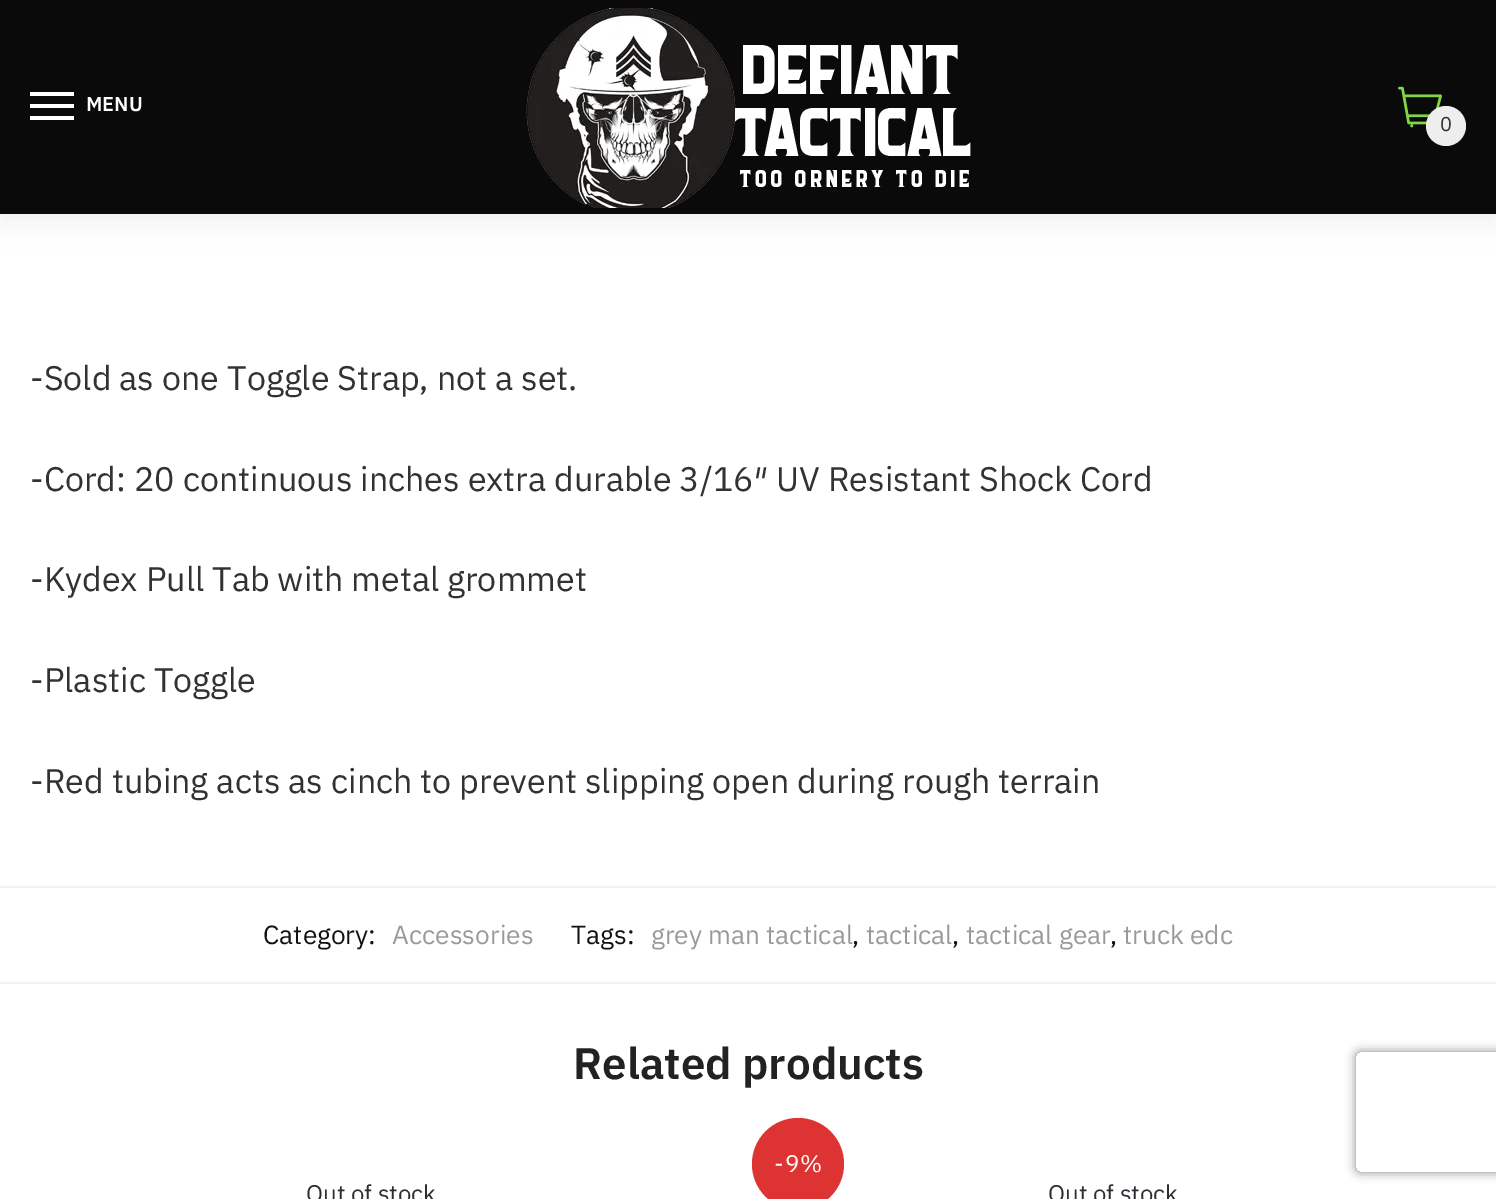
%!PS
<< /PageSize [1496 1199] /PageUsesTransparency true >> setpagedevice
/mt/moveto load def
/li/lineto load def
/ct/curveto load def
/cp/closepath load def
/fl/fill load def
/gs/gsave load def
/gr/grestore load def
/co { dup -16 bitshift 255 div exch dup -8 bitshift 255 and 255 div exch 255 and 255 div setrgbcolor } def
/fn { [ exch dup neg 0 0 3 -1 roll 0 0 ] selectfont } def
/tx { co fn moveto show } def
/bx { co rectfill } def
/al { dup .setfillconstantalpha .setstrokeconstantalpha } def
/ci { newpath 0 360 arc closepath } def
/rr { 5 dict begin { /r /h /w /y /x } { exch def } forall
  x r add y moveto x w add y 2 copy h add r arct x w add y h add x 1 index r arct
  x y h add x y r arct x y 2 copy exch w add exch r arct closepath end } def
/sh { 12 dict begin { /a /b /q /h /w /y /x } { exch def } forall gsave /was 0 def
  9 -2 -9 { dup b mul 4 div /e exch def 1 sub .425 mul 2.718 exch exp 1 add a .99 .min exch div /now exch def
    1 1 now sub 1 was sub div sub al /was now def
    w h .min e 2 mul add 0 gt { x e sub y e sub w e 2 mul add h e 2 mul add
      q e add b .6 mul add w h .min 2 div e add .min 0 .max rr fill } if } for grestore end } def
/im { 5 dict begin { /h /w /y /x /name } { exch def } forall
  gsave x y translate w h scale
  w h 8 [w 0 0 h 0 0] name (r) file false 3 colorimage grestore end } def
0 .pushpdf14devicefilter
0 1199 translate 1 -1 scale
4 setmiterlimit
0 0 1496 1199 16#FFFFFF bx
16#000000 co
0 2 1496 214 0 15 .08 sh
0 0 1496 214 16#0A0A0A bx
30 92 44 4 16#FFFFFF bx
30 104 44 4 16#FFFFFF bx
30 116 44 4 16#FFFFFF bx
(media/1.raw) 526 8 445 200 im
(media/2.raw) 1398 86 44 42 im
16#EEEEEE co
1446 126 20 ci fl
0 886 1496 2 16#F2F2F2 bx
0 982 1496 2 16#F2F2F2 bx
16#DD3333 co
798 1164 46 ci fl
gs
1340 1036 mt 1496 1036 li 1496 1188 li 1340 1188 li cp 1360 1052 mt 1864 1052 li 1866 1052 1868 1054 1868 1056 ct 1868 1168 li 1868 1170 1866 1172 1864 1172 ct 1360 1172 li 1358 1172 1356 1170 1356 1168 ct 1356 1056 li 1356 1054 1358 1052 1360 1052 ct cp eoclip newpath
16#808080 co
1356 1052 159 120 4 5 1 sh
gr
(MENU) 86 111 /IBMPlexSans-SemiBold 20 16#FFFFFF tx
/IBMPlexSans-Regular 20 fn
16#323232 co
1440 131 mt -1 0 (0) ashow
(-Sold as one Toggle Strap, not a set.) 30 390 /IBMPlexSans-Regular 34 16#323232 tx
(-Cord: 20 continuous inches extra durable 3/16″ UV Resistant Shock Cord) 30 491 /IBMPlexSans-Regular 34 16#323232 tx
(-Kydex Pull Tab with metal grommet) 30 591 /IBMPlexSans-Regular 34 16#323232 tx
(-Plastic Toggle) 30 692 /IBMPlexSans-Regular 34 16#323232 tx
(-Red tubing acts as cinch to prevent slipping open during rough terrain) 30 793 /IBMPlexSans-Regular 34 16#323232 tx
(Category:) 263 944 /IBMPlexSans-Regular 26.25 16#111111 tx
(Accessories) 392 944 /IBMPlexSans-Regular 26.25 16#999999 tx
(Tags:) 571 944 /IBMPlexSans-Regular 26.25 16#111111 tx
(grey man tactical) 651 944 /IBMPlexSans-Regular 26.25 16#999999 tx
(,) 852 944 /IBMPlexSans-Regular 26.25 16#111111 tx
(tactical) 866 944 /IBMPlexSans-Regular 26.25 16#999999 tx
(,) 952 944 /IBMPlexSans-Regular 26.25 16#111111 tx
(tactical gear) 966 944 /IBMPlexSans-Regular 26.25 16#999999 tx
(,) 1110 944 /IBMPlexSans-Regular 26.25 16#111111 tx
(truck edc) 1123 944 /IBMPlexSans-Regular 26.25 16#999999 tx
(Related products) 573 1079 /IBMPlexSans-SemiBold 44 16#222222 tx
(Out of stock) 306 1202 /IBMPlexSans-Regular 24 16#2C2D33 tx
16#FFFFFF co
774 1172 mt 1 0 (-9%) ashow
(Out of stock) 1048 1202 /IBMPlexSans-Regular 24 16#2C2D33 tx
.poppdf14devicefilter showpage
